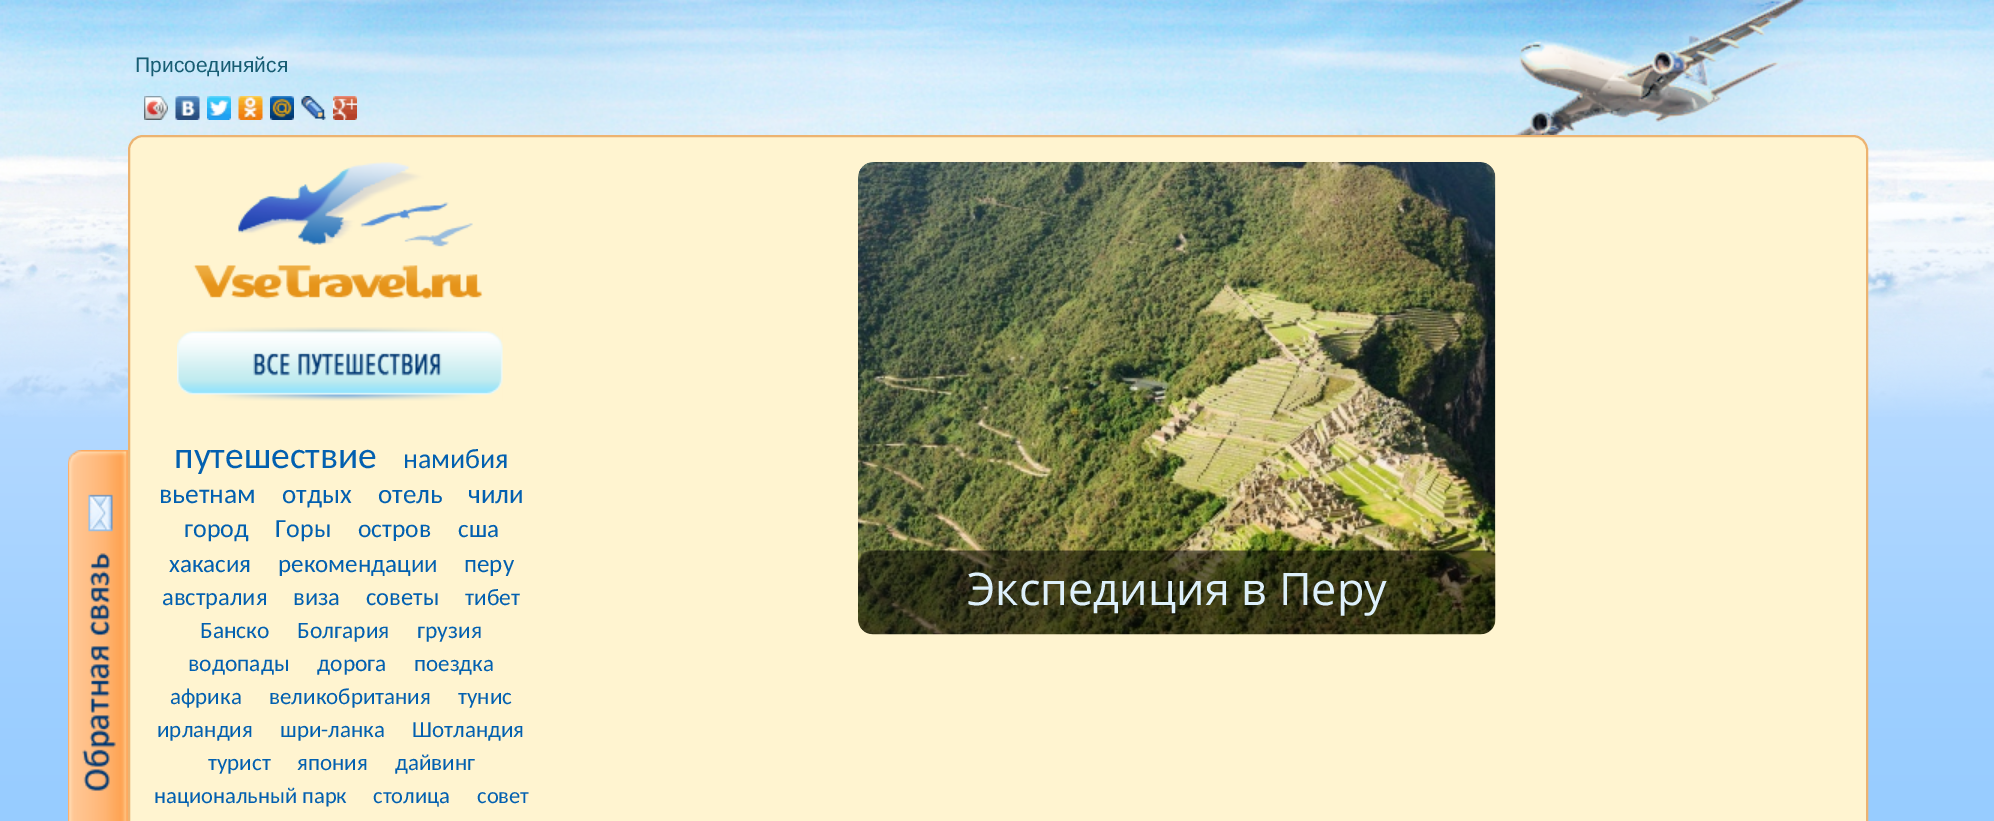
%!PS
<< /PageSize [1994 821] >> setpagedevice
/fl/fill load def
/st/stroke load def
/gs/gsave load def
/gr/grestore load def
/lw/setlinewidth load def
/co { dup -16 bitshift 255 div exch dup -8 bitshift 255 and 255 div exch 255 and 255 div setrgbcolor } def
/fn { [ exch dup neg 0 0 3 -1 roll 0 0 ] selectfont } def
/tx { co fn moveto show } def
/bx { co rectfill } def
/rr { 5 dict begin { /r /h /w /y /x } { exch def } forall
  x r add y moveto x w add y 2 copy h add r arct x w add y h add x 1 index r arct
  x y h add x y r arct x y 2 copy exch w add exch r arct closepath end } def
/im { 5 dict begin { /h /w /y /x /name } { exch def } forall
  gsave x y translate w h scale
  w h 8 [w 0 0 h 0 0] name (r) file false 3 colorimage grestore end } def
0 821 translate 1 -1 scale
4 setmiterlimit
0 0 1994 821 16#FFFFFF bx
(media/1.raw) 0 0 1994 821 im
(media/2.raw) 0 0 1994 417 im
(media/3.raw) 144 96 24 24 im
(media/4.raw) 144 96 24 24 im
(media/5.raw) 175 96 25 24 im
(media/6.raw) 207 96 24 24 im
(media/7.raw) 238 96 25 24 im
(media/8.raw) 270 96 24 24 im
(media/9.raw) 301 96 25 24 im
(media/10.raw) 333 96 24 24 im
(media/11.raw) 68 450 60 371 im
16#FFF4D0 co
129 136 1738 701 14 rr gs fl gr
16#ECB371 co
2 lw
st
(media/12.raw) 193 162 290 137 im
(media/13.raw) 177 327 326 74 im
(media/14.raw) 858 162 638 473 im
(media/15.raw) 858 550 638 85 im
(Присоединяйся) 135 72 /LiberationSans-Regular 21 16#175D73 tx
(путешествие) 174 468 /Carlito-Regular 37.5 16#0260B0 tx
(намибия) 403 468 /Carlito-Regular 28 16#0260B0 tx
(вьетнам) 159 503 /Carlito-Regular 27.5 16#0260B0 tx
(отдых) 282 503 /Carlito-Regular 27 16#0260B0 tx
(отель) 378 503 /Carlito-Regular 27 16#0260B0 tx
(чили) 468 503 /Carlito-Regular 27 16#0260B0 tx
(город) 184 537 /Carlito-Regular 26 16#0260B0 tx
(Горы) 275 537 /Carlito-Regular 26 16#0260B0 tx
(остров) 358 537 /Carlito-Regular 25.5 16#0260B0 tx
(сша) 458 537 /Carlito-Regular 25 16#0260B0 tx
(хакасия) 169 572 /Carlito-Regular 25 16#0260B0 tx
(рекомендации) 278 572 /Carlito-Regular 25 16#0260B0 tx
(перу) 464 572 /Carlito-Regular 25 16#0260B0 tx
(австралия) 162 605 /Carlito-Regular 24.5 16#0260B0 tx
(виза) 293 605 /Carlito-Regular 24.5 16#0260B0 tx
(советы) 366 605 /Carlito-Regular 24.5 16#0260B0 tx
(тибет) 465 605 /Carlito-Regular 23.5 16#0260B0 tx
(Банско) 200 638 /Carlito-Regular 23.5 16#0260B0 tx
(Болгария) 297 638 /Carlito-Regular 23.5 16#0260B0 tx
(грузия) 417 638 /Carlito-Regular 23.5 16#0260B0 tx
(водопады) 188 671 /Carlito-Regular 23.5 16#0260B0 tx
(дорога) 317 671 /Carlito-Regular 23.5 16#0260B0 tx
(поездка) 414 671 /Carlito-Regular 23 16#0260B0 tx
(африка) 170 704 /Carlito-Regular 23 16#0260B0 tx
(великобритания) 269 704 /Carlito-Regular 23 16#0260B0 tx
(тунис) 458 704 /Carlito-Regular 23 16#0260B0 tx
(ирландия) 157 737 /Carlito-Regular 23 16#0260B0 tx
(шри-ланка) 280 737 /Carlito-Regular 23 16#0260B0 tx
(Шотландия) 412 737 /Carlito-Regular 23 16#0260B0 tx
(турист) 208 770 /Carlito-Regular 23 16#0260B0 tx
(япония) 297 770 /Carlito-Regular 23 16#0260B0 tx
(дайвинг) 395 770 /Carlito-Regular 23 16#0260B0 tx
(национальный парк) 154 803 /Carlito-Regular 22.5 16#0260B0 tx
(столица) 373 803 /Carlito-Regular 22.5 16#0260B0 tx
(совет) 477 803 /Carlito-Regular 22.5 16#0260B0 tx
(Экспедиция в Перу) 967 605 /OpenSans-Regular 45 16#DEF1FC tx
showpage
